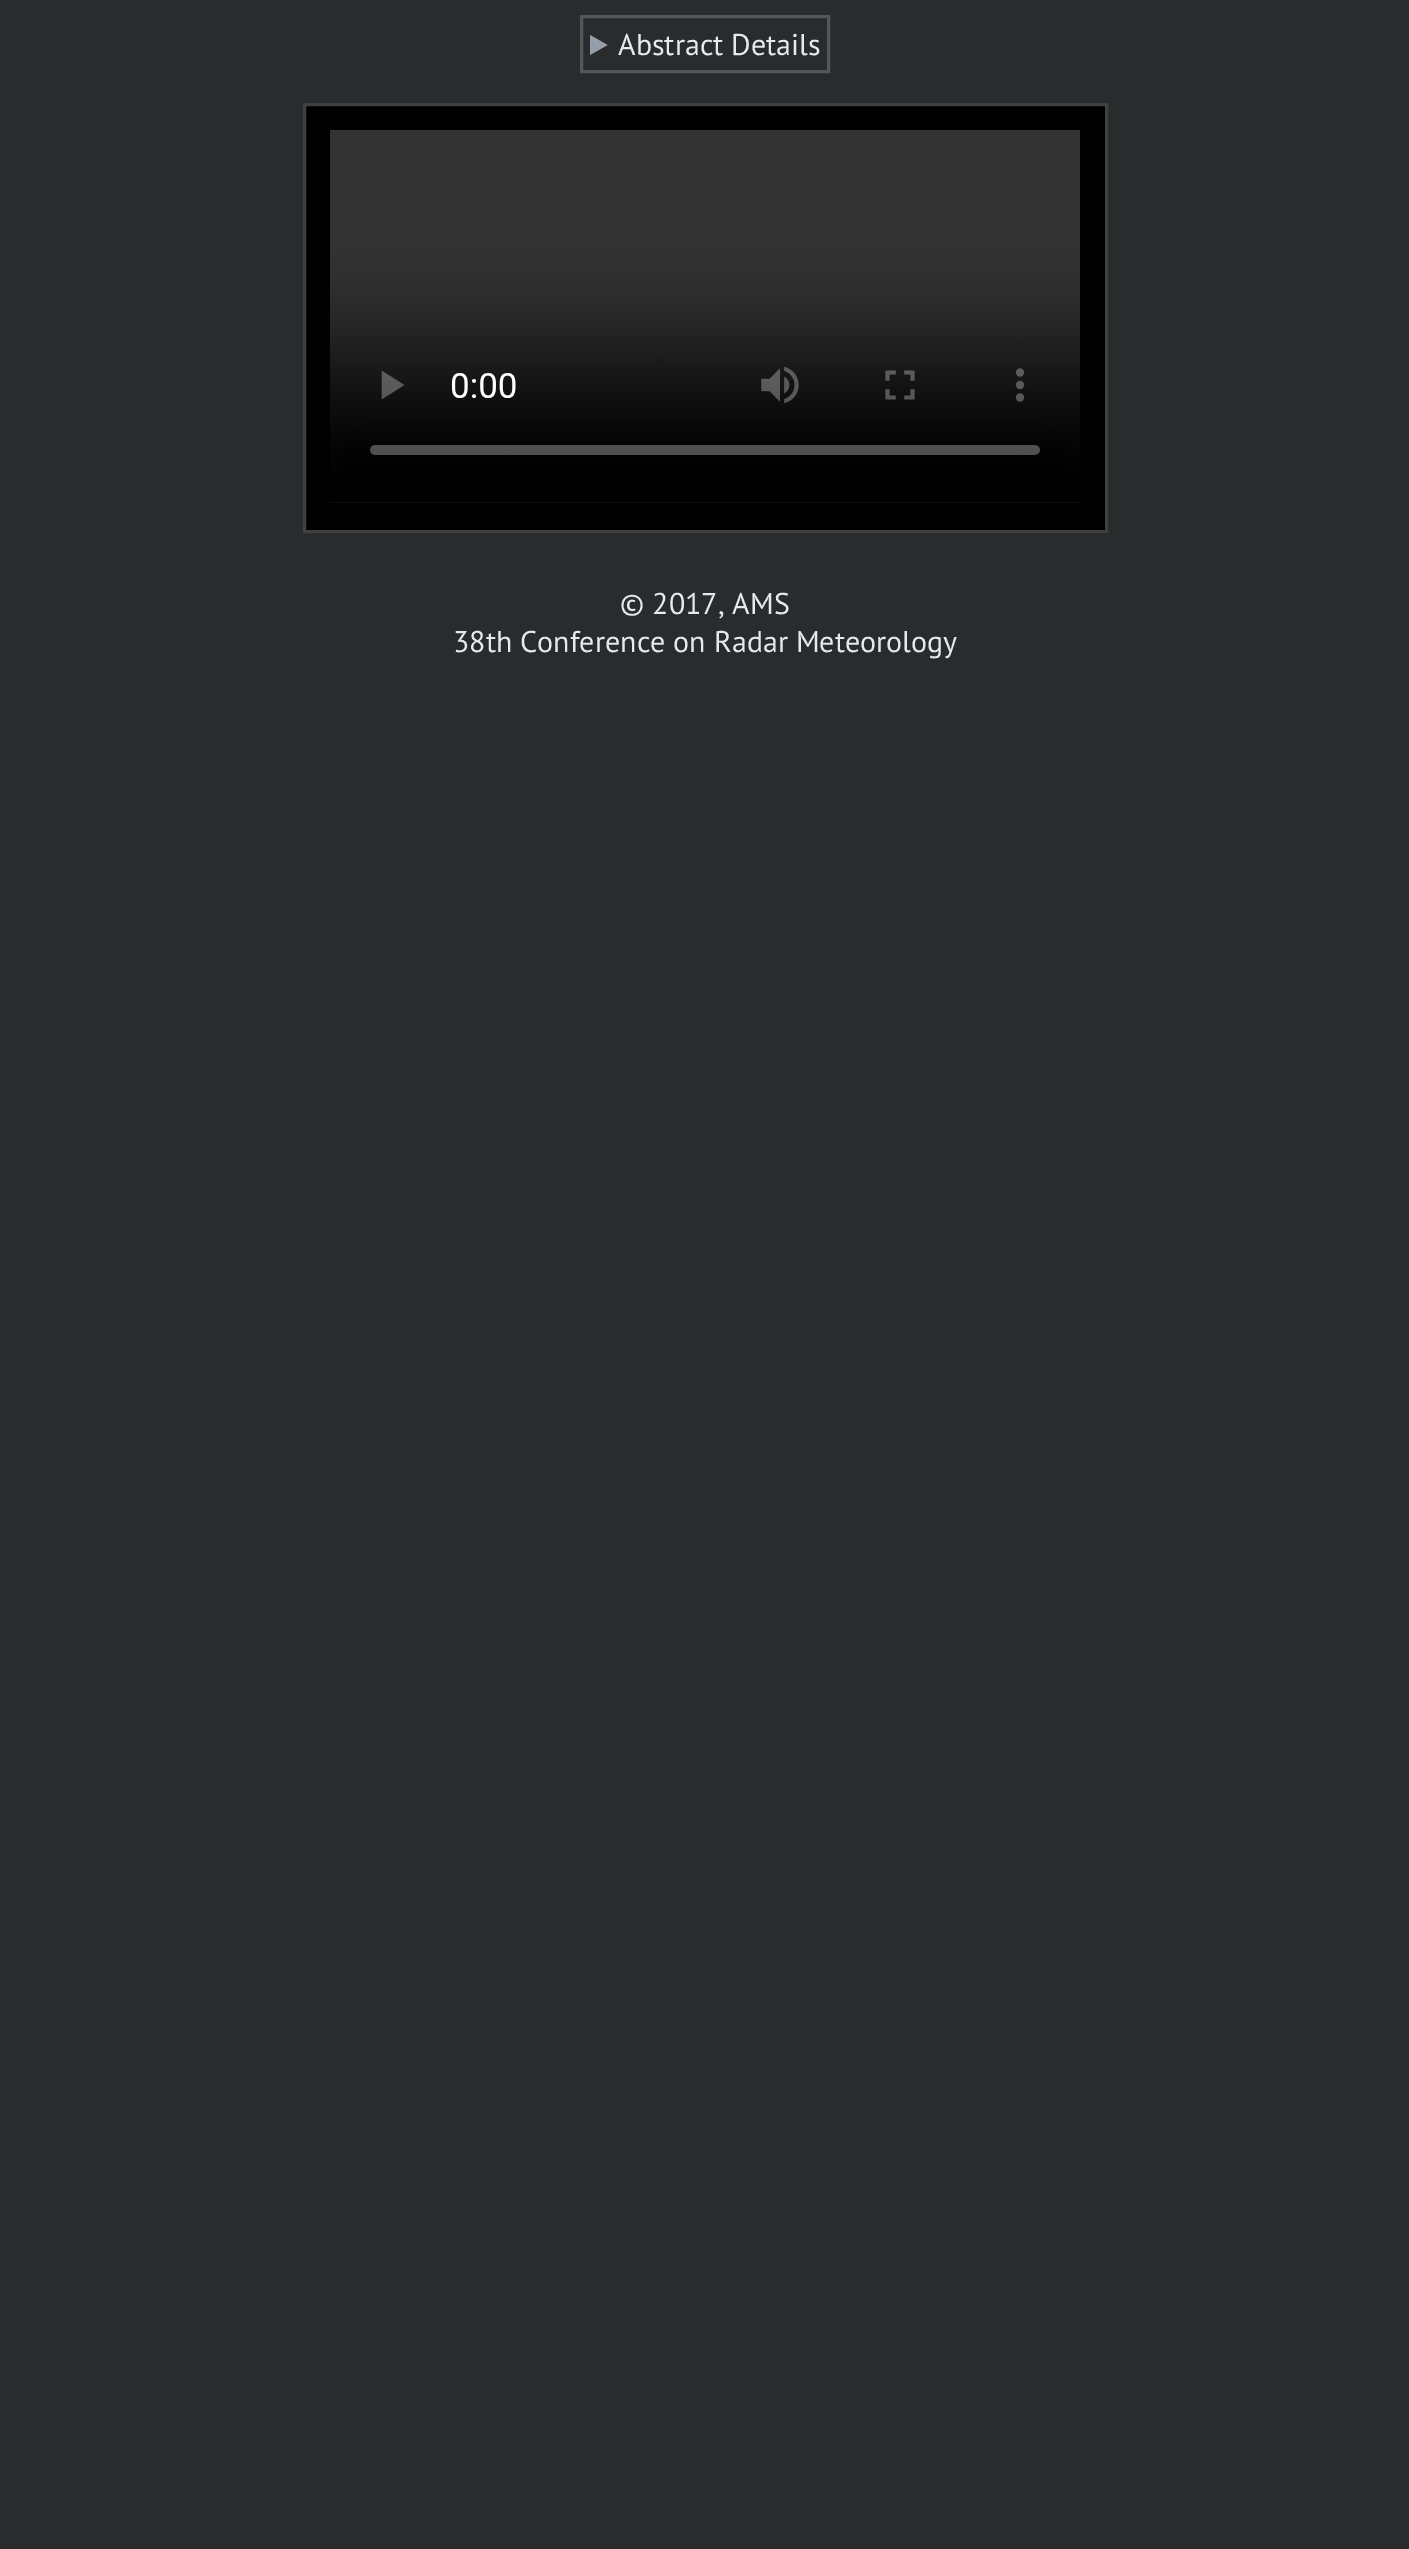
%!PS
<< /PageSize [1409 2549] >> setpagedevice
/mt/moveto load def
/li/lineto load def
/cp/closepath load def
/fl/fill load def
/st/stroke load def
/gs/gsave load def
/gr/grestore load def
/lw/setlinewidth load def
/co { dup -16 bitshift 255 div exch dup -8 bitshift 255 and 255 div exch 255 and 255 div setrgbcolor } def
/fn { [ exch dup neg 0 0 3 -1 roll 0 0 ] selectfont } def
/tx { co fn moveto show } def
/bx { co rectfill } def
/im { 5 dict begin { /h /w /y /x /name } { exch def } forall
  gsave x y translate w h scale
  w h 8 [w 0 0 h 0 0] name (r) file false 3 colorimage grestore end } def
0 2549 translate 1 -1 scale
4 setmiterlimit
0 0 1409 2549 16#2A2B2C bx
16#555659 co
3 lw
581.5 16.5 247 55 rectstroke
16#959EAB co
590 55 mt 590 35 li 607.5 45 li cp fl
16#000000 co
304.5 104.5 mt 1106.5 104.5 li 1106.5 531.5 li 304.5 531.5 li cp gs fl gr
16#3F4041 co
st
(media/1.raw) 330 130 750 373 im
(Abstract Details) 618 55 /PTSans-Regular 30 16#E7E9EB tx
(© 2017, AMS) 620 614 /PTSans-Regular 30 16#E7E9EB tx
(38th Conference on Radar Meteorology) 453 652 /PTSans-Regular 30 16#E7E9EB tx
showpage
